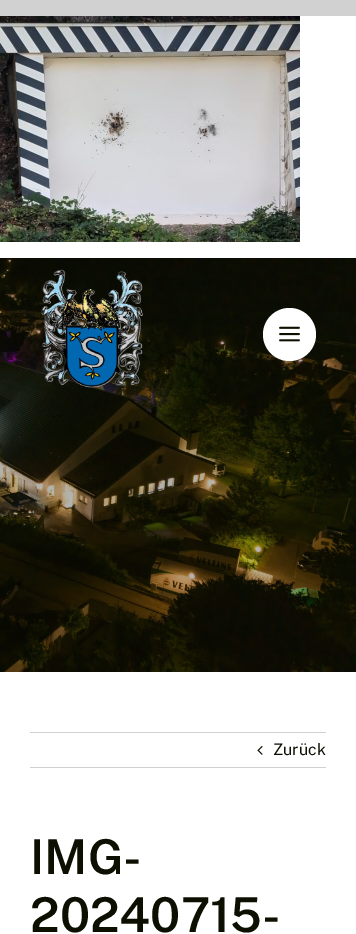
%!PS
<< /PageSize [356 934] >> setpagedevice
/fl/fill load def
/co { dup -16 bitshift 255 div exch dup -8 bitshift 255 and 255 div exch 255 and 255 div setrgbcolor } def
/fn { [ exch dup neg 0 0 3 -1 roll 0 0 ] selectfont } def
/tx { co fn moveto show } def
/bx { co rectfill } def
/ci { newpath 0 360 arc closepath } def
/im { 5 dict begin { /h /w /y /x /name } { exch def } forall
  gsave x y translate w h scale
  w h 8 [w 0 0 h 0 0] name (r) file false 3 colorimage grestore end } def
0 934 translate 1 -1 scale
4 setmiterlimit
0 0 356 934 16#D1D1D1 bx
0 16 356 918 16#FFFFFF bx
(media/1.raw) 0 16 300 226 im
(media/2.raw) 0 258 356 414 im
(media/3.raw) 41 269 102 119 im
289.5 334.5 26.5 ci fl
(media/4.raw) 279 326 21 16 im
30 732 296 1 16#D1D1D1 bx
30 767 296 1 16#D1D1D1 bx
(media/5.raw) 257 746 6 9 im
(Zurück) 273 755 /PublicSans-Regular 16 16#0D0F01 tx
(IMG-) 30 874 /PublicSans-SemiBold 48 16#0D0F01 tx
(20240715-) 30 932 /PublicSans-SemiBold 48 16#0D0F01 tx
showpage
